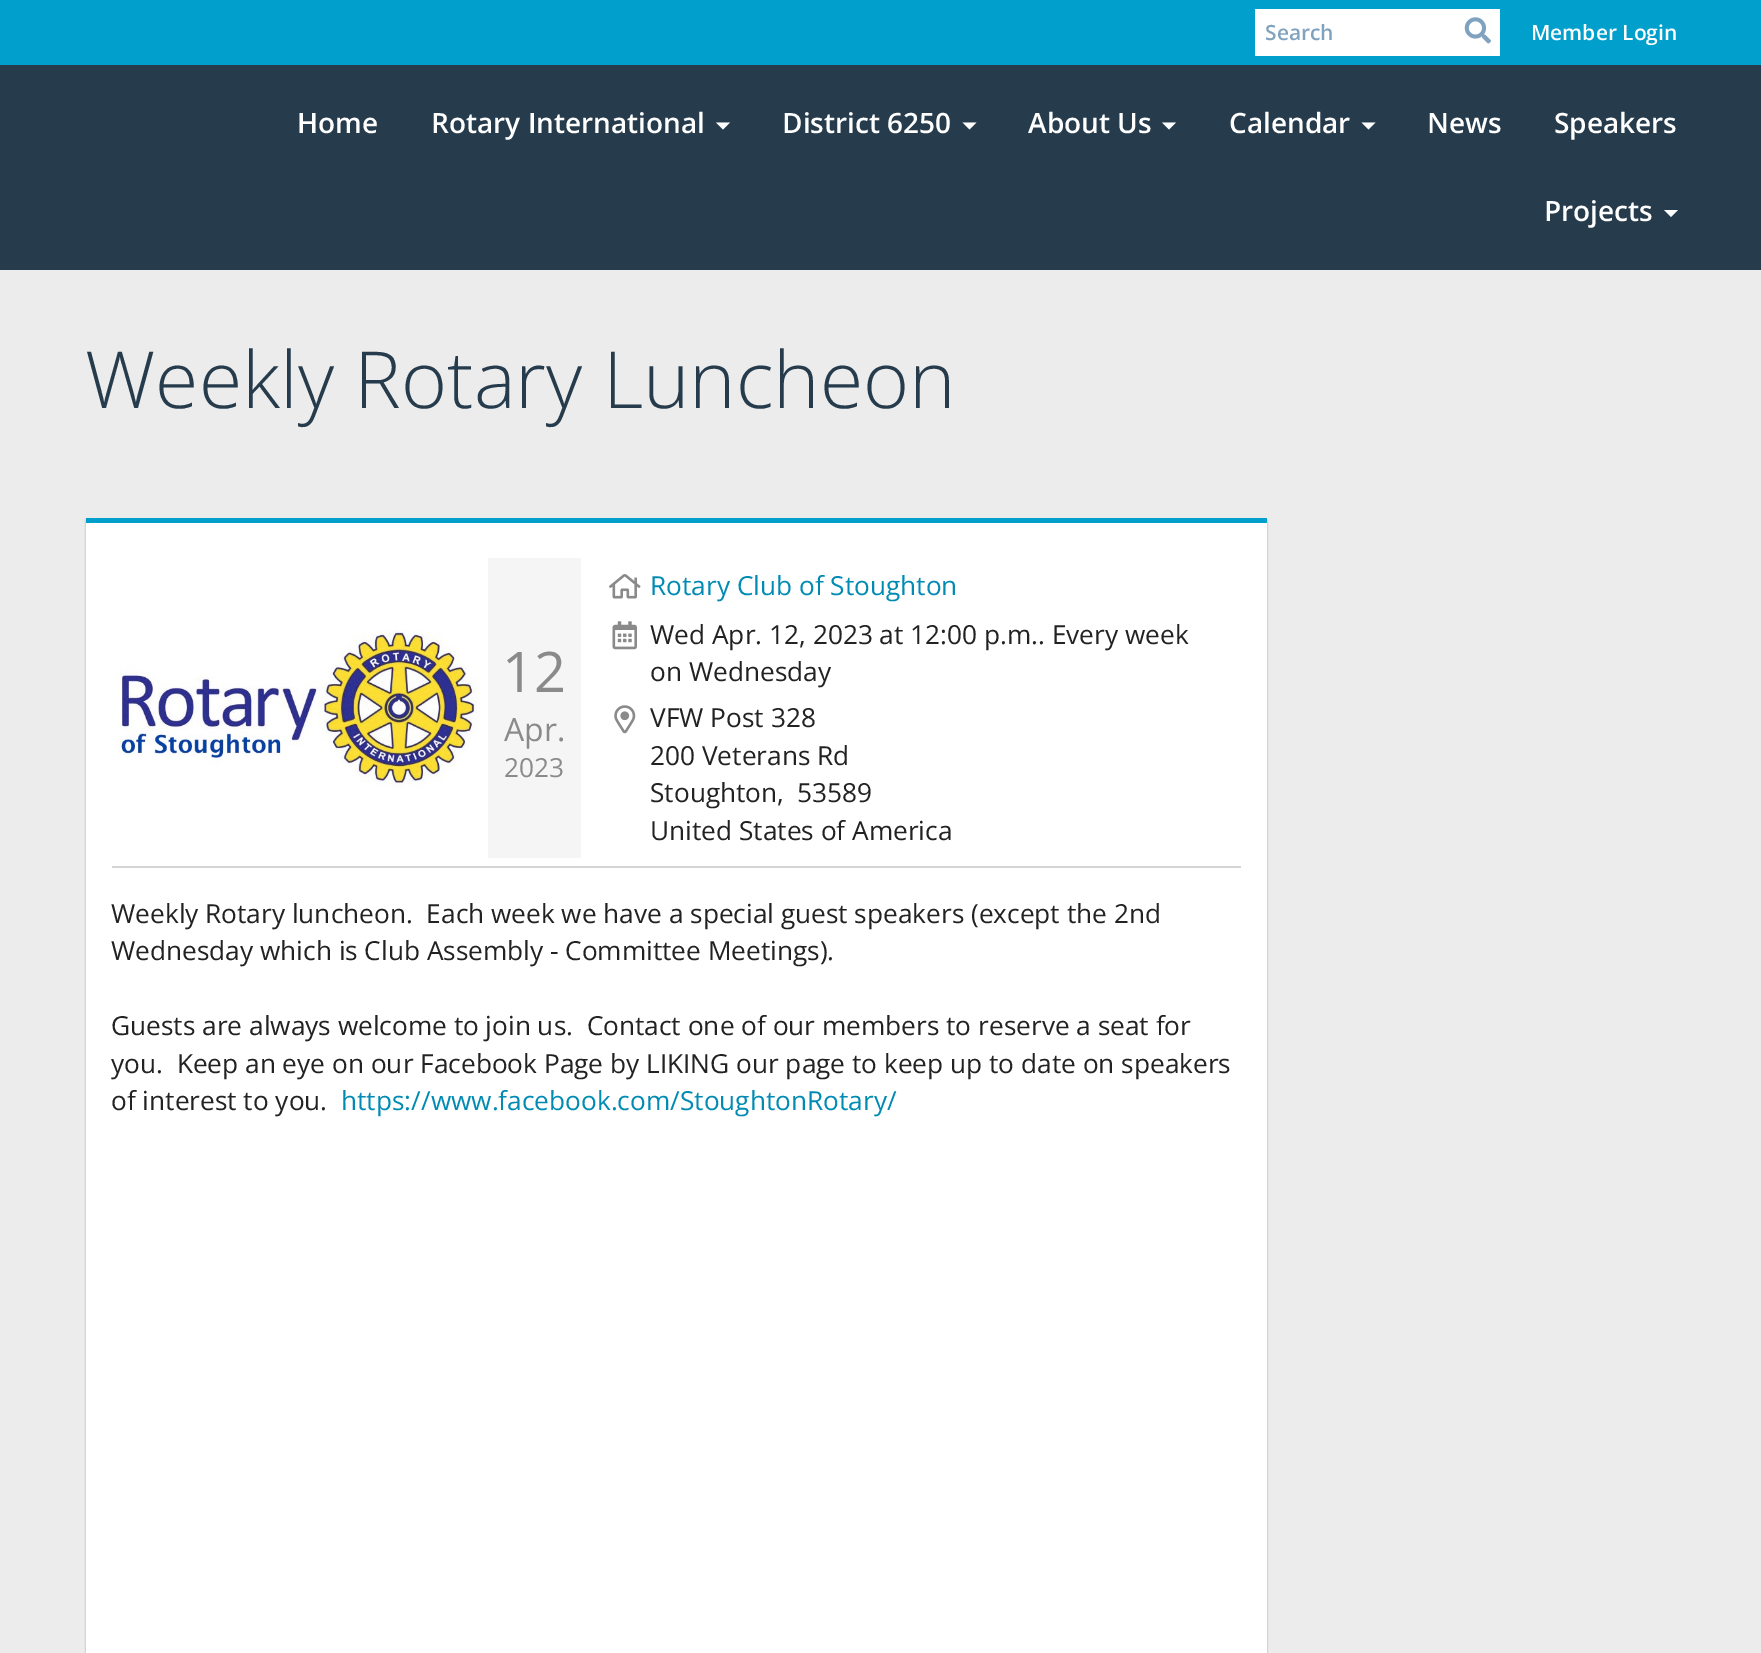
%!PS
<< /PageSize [1761 1653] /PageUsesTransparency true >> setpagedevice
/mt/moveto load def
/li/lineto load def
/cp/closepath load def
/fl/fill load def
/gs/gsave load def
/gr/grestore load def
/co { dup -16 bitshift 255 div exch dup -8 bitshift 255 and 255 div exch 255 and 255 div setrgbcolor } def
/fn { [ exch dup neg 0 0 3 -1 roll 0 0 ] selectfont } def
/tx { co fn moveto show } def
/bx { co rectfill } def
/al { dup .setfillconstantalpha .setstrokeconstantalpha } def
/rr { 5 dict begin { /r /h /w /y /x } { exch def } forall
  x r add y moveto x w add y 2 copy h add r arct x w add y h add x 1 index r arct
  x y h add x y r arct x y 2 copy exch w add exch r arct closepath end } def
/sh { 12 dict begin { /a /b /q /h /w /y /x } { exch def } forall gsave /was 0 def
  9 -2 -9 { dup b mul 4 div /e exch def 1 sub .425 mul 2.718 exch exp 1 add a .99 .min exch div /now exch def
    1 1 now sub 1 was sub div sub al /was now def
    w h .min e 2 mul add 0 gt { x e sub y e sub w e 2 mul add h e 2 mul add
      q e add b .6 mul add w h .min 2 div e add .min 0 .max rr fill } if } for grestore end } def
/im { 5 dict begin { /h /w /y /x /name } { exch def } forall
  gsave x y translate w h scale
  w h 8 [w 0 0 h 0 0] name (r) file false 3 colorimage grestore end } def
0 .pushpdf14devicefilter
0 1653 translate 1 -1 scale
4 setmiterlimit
0 0 1761 1653 16#ECECEC bx
0 0 1761 65 16#019FCB bx
1255 9 245 47 16#FFFFFF bx
(media/1.raw) 1464 17 27 27 im
0 65 1761 205 16#263B4C bx
16#FFFFFF co
716 122.5 mt 730 122.5 li 723 129.5 li cp fl
962.5 122.5 mt 976.5 122.5 li 969.5 129.5 li cp fl
1162 122.5 mt 1176 122.5 li 1169 129.5 li cp fl
1361.5 122.5 mt 1375.5 122.5 li 1368.5 129.5 li cp fl
1664 210 mt 1678 210 li 1671 217 li cp fl
16#000000 co
86 520 1181 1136 0 1 .15 sh
86 523 1181 1130 16#FFFFFF bx
gs
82 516 mt 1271 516 li 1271 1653 li 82 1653 li cp 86 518 mt 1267 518 li 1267 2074 li 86 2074 li cp eoclip newpath
16#000000 co
86 520 1181 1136 0 1 .15 sh
gr
86 518 1181 5 16#019FCB bx
112 866 1129 2 16#D5D5D5 bx
(media/2.raw) 116 630 364 160 im
488 558 93 300 16#F5F5F5 bx
(media/3.raw) 609 574 32 25 im
(media/4.raw) 612 621 25 29 im
(media/5.raw) 614 705 22 29 im
(Search) 1265 40 /OpenSans-SemiBold 21 16#7FA2BF tx
(Member Login) 1531 40 /OpenSans-SemiBold 21 16#FFFFFF tx
(Home) 297 133 /OpenSans-SemiBold 28 16#FFFFFF tx
(Rotary International) 431 133 /OpenSans-SemiBold 28 16#FFFFFF tx
(District 6250) 782 133 /OpenSans-SemiBold 28 16#FFFFFF tx
(About Us) 1028 133 /OpenSans-SemiBold 28 16#FFFFFF tx
(Calendar) 1229 133 /OpenSans-SemiBold 28 16#FFFFFF tx
(News) 1427 133 /OpenSans-SemiBold 28 16#FFFFFF tx
(Speakers) 1554 133 /OpenSans-SemiBold 28 16#FFFFFF tx
(Projects) 1544 221 /OpenSans-SemiBold 28 16#FFFFFF tx
(Weekly Rotary Luncheon) 85 408 /OpenSans-Light 78.75 16#263B4C tx
(12) 502 692 /OpenSans-Regular 56 16#8A8A8A tx
(Apr.) 504 741 /OpenSans-Regular 32 16#8A8A8A tx
(2023) 504 777 /OpenSans-Regular 26.25 16#8A8A8A tx
(Rotary Club of Stoughton) 650 595 /OpenSans-Regular 26.25 16#018BB2 tx
(Wed Apr. 12, 2023 at 12:00 p.m.. Every week) 650 644 /OpenSans-Regular 26.25 16#222222 tx
(on Wednesday) 650 681 /OpenSans-Regular 26.25 16#222222 tx
(VFW Post 328) 650 727 /OpenSans-Regular 26.25 16#222222 tx
(200 Veterans Rd) 650 765 /OpenSans-Regular 26.25 16#222222 tx
(Stoughton,) 650 802 /OpenSans-Regular 26.25 16#222222 tx
(53589) 797 802 /OpenSans-Regular 26.25 16#222222 tx
(United States of America) 650 840 /OpenSans-Regular 26.25 16#222222 tx
(Weekly Rotary luncheon.  Each week we have a special guest speakers \(except the 2nd) 111 923 /OpenSans-Regular 26.25 16#222222 tx
(Wednesday which is Club Assembly - Committee Meetings\).) 111 960 /OpenSans-Regular 26.25 16#222222 tx
(Guests are always welcome to join us.  Contact one of our members to reserve a seat for) 111 1035 /OpenSans-Regular 26.25 16#222222 tx
(you.  Keep an eye on our Facebook Page by LIKING our page to keep up to date on speakers) 111 1073 /OpenSans-Regular 26.25 16#222222 tx
(of interest to you.) 111 1110 /OpenSans-Regular 26.25 16#222222 tx
(https://www.facebook.com/StoughtonRotary/) 341 1110 /OpenSans-Regular 26.25 16#018BB2 tx
.poppdf14devicefilter showpage
